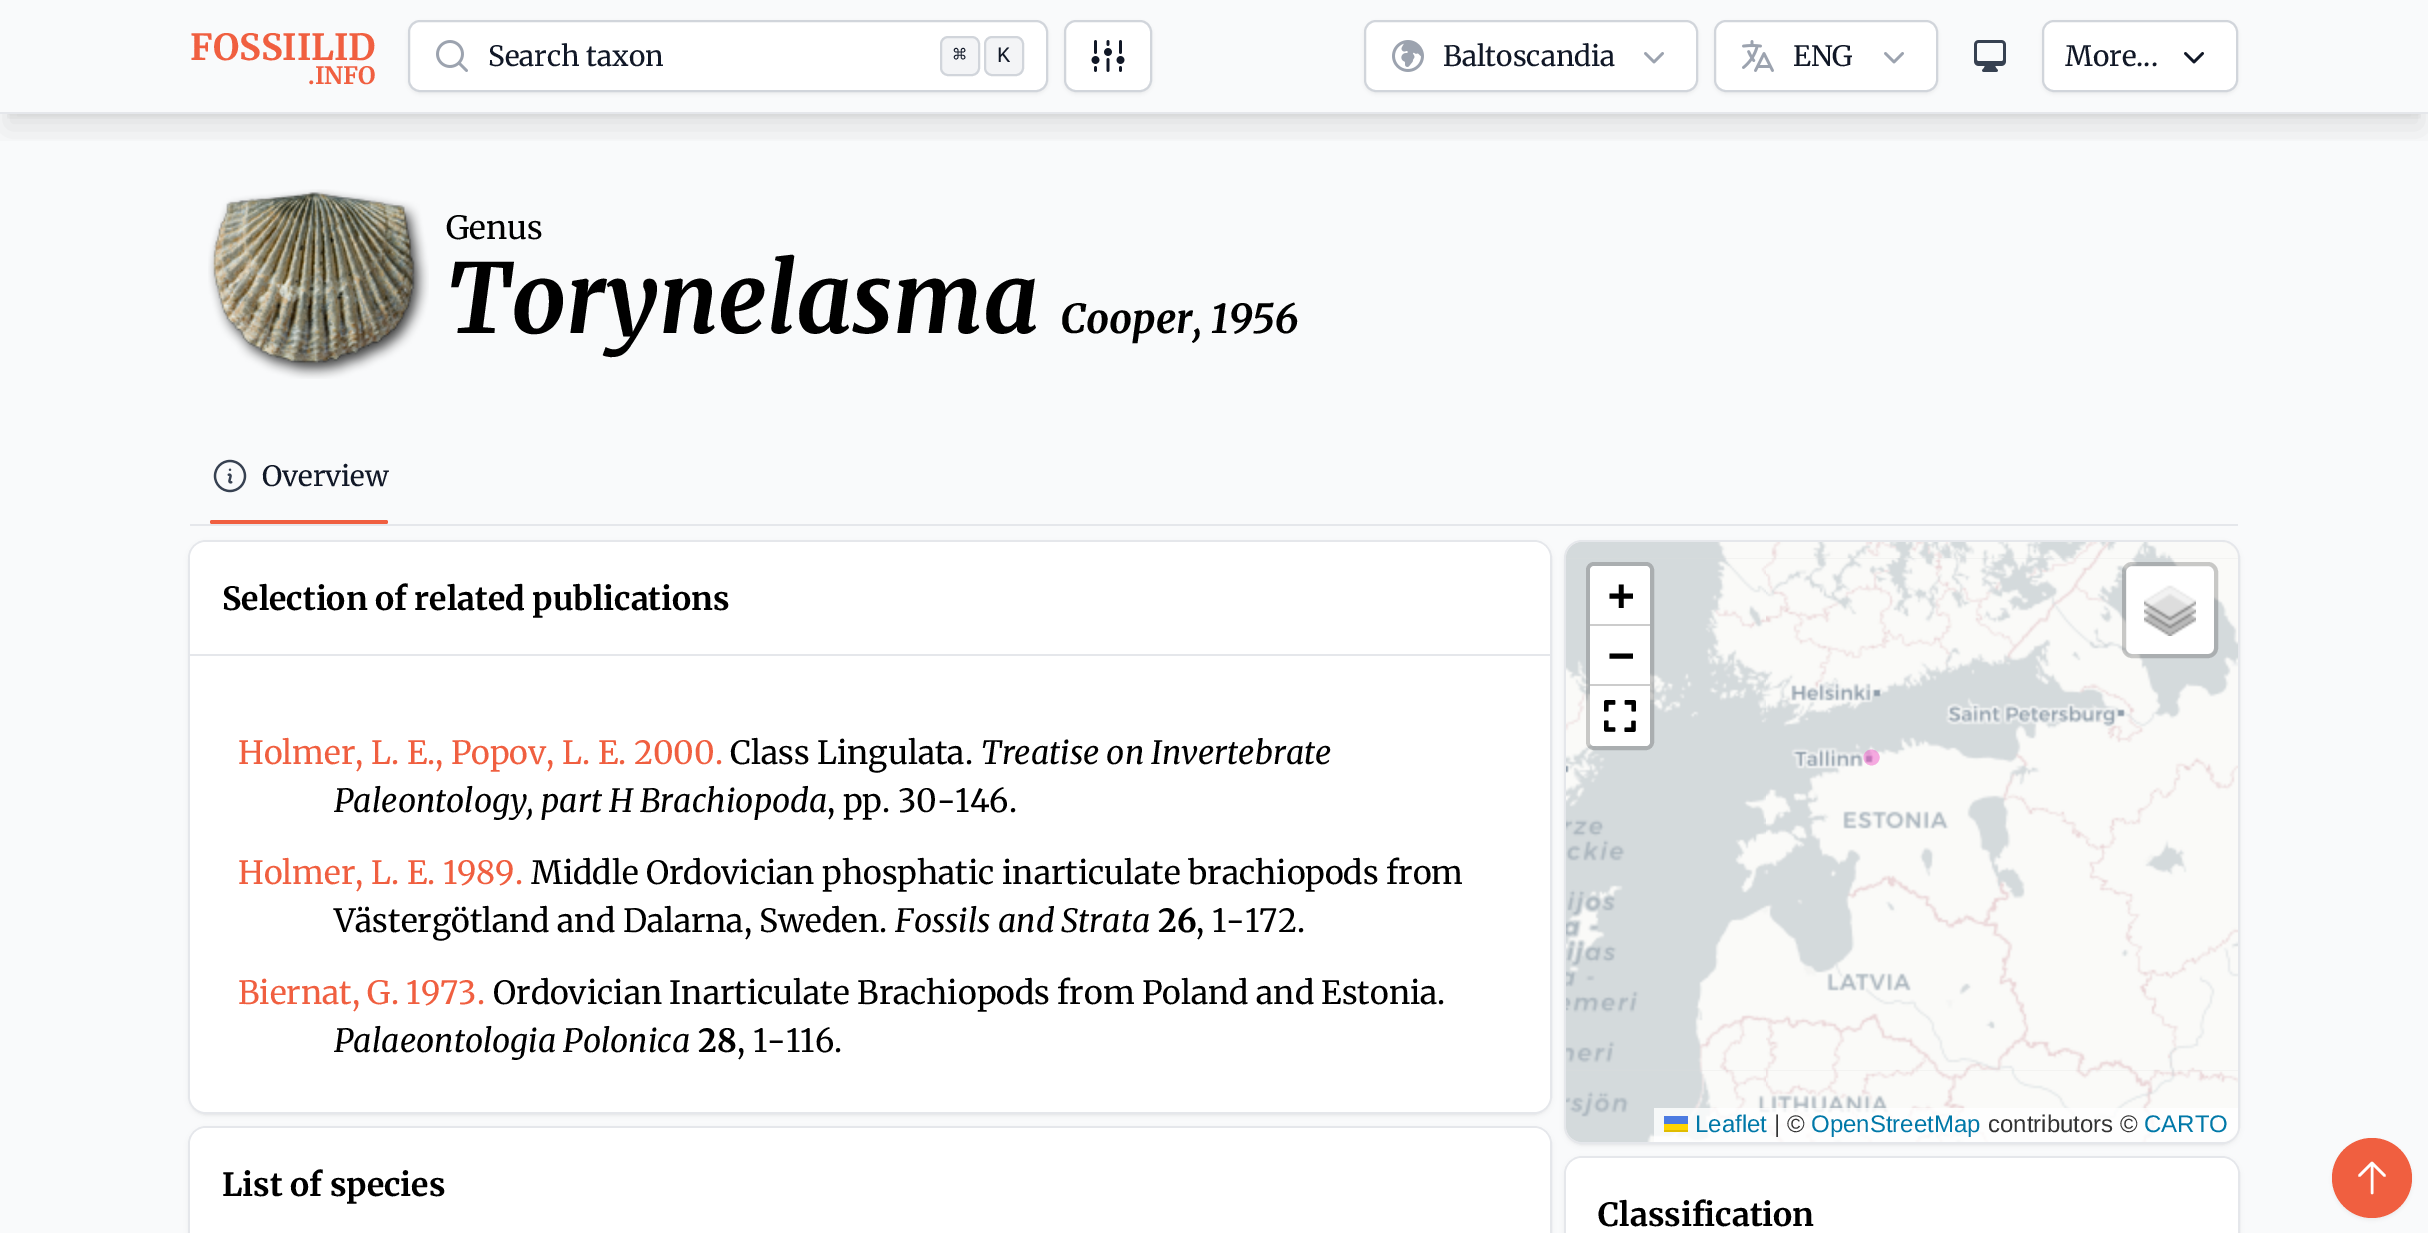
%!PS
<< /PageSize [2428 1233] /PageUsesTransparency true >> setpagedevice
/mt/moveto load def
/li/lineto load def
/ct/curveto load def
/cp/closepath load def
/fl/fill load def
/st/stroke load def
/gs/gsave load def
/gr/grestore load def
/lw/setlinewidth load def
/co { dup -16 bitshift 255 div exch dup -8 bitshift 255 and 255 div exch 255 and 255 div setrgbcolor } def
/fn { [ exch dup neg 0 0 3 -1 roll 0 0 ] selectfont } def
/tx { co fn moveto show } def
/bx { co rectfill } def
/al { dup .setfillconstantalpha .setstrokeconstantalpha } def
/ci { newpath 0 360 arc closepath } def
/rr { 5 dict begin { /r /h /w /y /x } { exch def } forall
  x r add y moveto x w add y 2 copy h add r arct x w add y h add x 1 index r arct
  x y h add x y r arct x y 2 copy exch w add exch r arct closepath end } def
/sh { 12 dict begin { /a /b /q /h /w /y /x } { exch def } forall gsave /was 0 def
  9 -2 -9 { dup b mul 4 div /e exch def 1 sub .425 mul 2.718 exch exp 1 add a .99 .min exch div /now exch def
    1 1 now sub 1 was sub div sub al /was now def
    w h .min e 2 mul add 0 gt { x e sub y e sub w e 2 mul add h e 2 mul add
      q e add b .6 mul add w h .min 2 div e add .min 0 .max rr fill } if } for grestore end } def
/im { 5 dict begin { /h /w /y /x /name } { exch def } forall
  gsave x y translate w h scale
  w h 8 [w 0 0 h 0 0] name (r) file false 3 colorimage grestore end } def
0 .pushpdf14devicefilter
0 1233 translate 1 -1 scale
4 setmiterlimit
0 0 2428 1233 16#F9FAFB bx
gs
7 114 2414 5 rectclip
16#000000 co
8 16 2412 98 0 6 .1 sh
gr
gs
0 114 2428 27 rectclip
16#000000 co
6 26 2416 102 0 15 .1 sh
gr
0 112 2428 2 16#E5E7EB bx
16#000000 co
408 22 640 72 12 2 .05 sh
16#FFFFFF co
409 21 638 70 11 rr gs fl gr
16#D1D5DB co
2 lw
st
(media/1.raw) 436 40 32 32 im
16#F3F4F6 co
941 37 38 38 7 rr gs fl gr
16#D1D5DB co
st
16#F3F4F6 co
985 37 38 38 7 rr gs fl gr
16#D1D5DB co
st
16#000000 co
1064 22 88 72 12 2 .05 sh
16#FFFFFF co
1065 21 86 70 11 rr gs fl gr
16#D1D5DB co
st
(media/2.raw) 1091 40 34 32 im
16#000000 co
1364 22 334 72 12 2 .05 sh
16#FFFFFF co
1365 21 332 70 11 rr gs fl gr
16#D1D5DB co
st
(media/3.raw) 1392 40 32 32 im
(media/4.raw) 1644 52 20 12 im
16#000000 co
1714 22 224 72 12 2 .05 sh
16#FFFFFF co
1715 21 222 70 11 rr gs fl gr
16#D1D5DB co
st
(media/5.raw) 1742 40 32 32 im
(media/4.raw) 1884 52 20 12 im
(media/6.raw) 1974 40 32 32 im
16#000000 co
2042 22 196 72 12 2 .05 sh
16#FFFFFF co
2043 21 194 70 11 rr gs fl gr
16#D1D5DB co
st
(media/7.raw) 2184 52 20 12 im
(media/8.raw) 208 189 221 190 im
190 524 2048 2 16#E5E7EB bx
(media/9.raw) 213 459 34 34 im
16#F05F40 co
210 520 178 4 2 rr fl
16#000000 co
192 546 1356 566 14 2 .1 sh
190 544 1360 570 16 3 .1 sh
16#E5E7EB co
189 541 1362 572 17 rr st
16#FFFFFF co
190 542 1360 570 16 rr fl
190 654 1360 2 16#E5E7EB bx
16#000000 co
190 1130 1360 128 16 3 .1 sh
16#E5E7EB co
189 1127 1362 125 17 rr st
16#FFFFFF co
190 1128 1360 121 16 rr fl
16#000000 co
1568 546 668 596 14 2 .1 sh
1566 544 672 600 16 3 .1 sh
16#E5E7EB co
1565 541 674 602 17 rr st
16#DDDDDD co
1566 542 672 600 16 rr fl
(media/12.raw) 1566 557 200 513 im
(media/10.raw) 1566 542 200 16 im
(media/13.raw) 1766 557 472 513 im
(media/11.raw) 1766 542 472 16 im
(media/14.raw) 1566 1069 200 73 im
(media/15.raw) 1766 1069 472 73 im
0.14 al
16#F055C7 co
1869.5 757.5 mt 1869.5 760 1873.5 760 1873.5 757.5 ct 1873.5 755 1869.5 755 1869.5 757.5 ct eofill
0.49 al
12 lw
1 setlinecap
1 setlinejoin
1869.5 757.5 mt 1869.5 760 1873.5 760 1873.5 757.5 ct 1873.5 755 1869.5 755 1869.5 757.5 ct st
0.2 al
16#000000 co
4 lw
0 setlinecap
0 setlinejoin
1588 564 64 184 6 rr st
1 al
16#FFFFFF co
1594 566 mt 1646 566 li 1648 566 1650 568 1650 570 ct 1650 624 li 1590 624 li 1590 570 li 1590 568 1592 566 1594 566 ct cp fl
1590 624 60 2 16#CCCCCC bx
1590 626 60 58 16#FFFFFF bx
1590 684 60 2 16#CCCCCC bx
16#FFFFFF co
1590 686 mt 1650 686 li 1650 742 li 1650 744 1648 746 1646 746 ct 1594 746 li 1592 746 1590 744 1590 742 ct cp fl
(media/16.raw) 1604 700 32 32 im
2126 566 88 88 6 rr fl
0.2 al
16#000000 co
2124 564 92 92 8 rr st
1 al
(media/17.raw) 2144 585 52 51 im
0.8 al
16#FFFFFF co
1654 1108 mt 2238 1108 li 2238 1126 li 2238 1135 2231 1142 2222 1142 ct 1654 1142 li cp fl
1 al
1664 1116 24 8 16#4C7BE1 bx
1664 1124 24 6 16#FFD500 bx
1664 1130 24 2 16#E0BC00 bx
16#000000 co
1566 1160 672 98 16 3 .1 sh
16#E5E7EB co
2 lw
1565 1157 674 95 17 rr st
16#FFFFFF co
1566 1158 672 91 16 rr fl
16#000000 co
2332 1140 80 80 40 2 .05 sh
16#F05F40 co
2372 1178 40 ci fl
16#FFFFFF co
2.5 lw
1 setlinecap
1 setlinejoin
2359.5 1175.5 mt 2372 1163 li 2372 1163 mt 2384.5 1175.5 li 2372 1163 mt 2372 1193 li st
(FOSSIILID) 190 60 /Merriweather-Bold 36 16#F05F40 tx
(.INFO) 308 84 /Merriweather-Bold 24 16#F05F40 tx
(Search taxon) 488 66 /Merriweather-Regular 28 16#111827 tx
(⌘) 953 62 /DejaVuSansMono-Regular 22 16#111827 tx
(K) 997 62 /LiberationMono-Regular 22 16#111827 tx
(Baltoscandia) 1443 66 /Merriweather-Regular 28 16#111827 tx
(ENG) 1793 66 /Merriweather-Regular 28 16#111827 tx
(More...) 2065 66 /Merriweather-Regular 28 16#111827 tx
(Genus) 446 239 /Merriweather-Regular 32 16#000000 tx
(Torynelasma) 446 333 /Merriweather-BoldItalic 96 16#000000 tx
(Cooper, 1956) 1060 333 /Merriweather-BoldItalic 40 16#000000 tx
(Overview) 262 486 /Merriweather-Regular 28 16#111827 tx
(Selection of related publications) 222 610 /Merriweather-Bold 32 16#000000 tx
(Holmer, L. E., Popov, L. E. 2000.) 238 764 /Merriweather-Regular 32 16#F05F40 tx
(Class Lingulata.) 730 764 /Merriweather-Regular 32 16#000000 tx
(Treatise on Invertebrate) 981 764 /Merriweather-Italic 32 16#000000 tx
(Paleontology, part H Brachiopoda) 334 812 /Merriweather-Italic 32 16#000000 tx
(, pp. 30-146.) 827 812 /Merriweather-Regular 32 16#000000 tx
(Holmer, L. E. 1989.) 238 884 /Merriweather-Regular 32 16#F05F40 tx
(Middle Ordovician phosphatic inarticulate brachiopods from) 531 884 /Merriweather-Regular 32 16#000000 tx
(Västergötland and Dalarna, Sweden.) 334 932 /Merriweather-Regular 32 16#000000 tx
(Fossils and Strata) 895 932 /Merriweather-Italic 32 16#000000 tx
(26) 1158 932 /Merriweather-Bold 32 16#000000 tx
(, 1-172.) 1196 932 /Merriweather-Regular 32 16#000000 tx
(Biernat, G. 1973.) 238 1004 /Merriweather-Regular 32 16#F05F40 tx
(Ordovician Inarticulate Brachiopods from Poland and Estonia.) 493 1004 /Merriweather-Regular 32 16#000000 tx
(Palaeontologia Polonica) 334 1052 /Merriweather-Italic 32 16#000000 tx
(28) 698 1052 /Merriweather-Bold 32 16#000000 tx
(, 1-116.) 737 1052 /Merriweather-Regular 32 16#000000 tx
(List of species) 222 1196 /Merriweather-Bold 32 16#000000 tx
(+) 1608 610 /DejaVuSansMono-Bold 44 16#000000 tx
(−) 1608 670 /DejaVuSansMono-Bold 44 16#000000 tx
(Leaflet) 1695 1132 /LiberationSans-Regular 24 16#0078A8 tx
(| ©) 1774 1132 /LiberationSans-Regular 24 16#333333 tx
(OpenStreetMap) 1811 1132 /LiberationSans-Regular 24 16#0078A8 tx
(contributors ©) 1988 1132 /LiberationSans-Regular 24 16#333333 tx
(CARTO) 2144 1132 /LiberationSans-Regular 24 16#0078A8 tx
(Classification) 1598 1226 /Merriweather-Bold 32 16#000000 tx
.poppdf14devicefilter showpage
